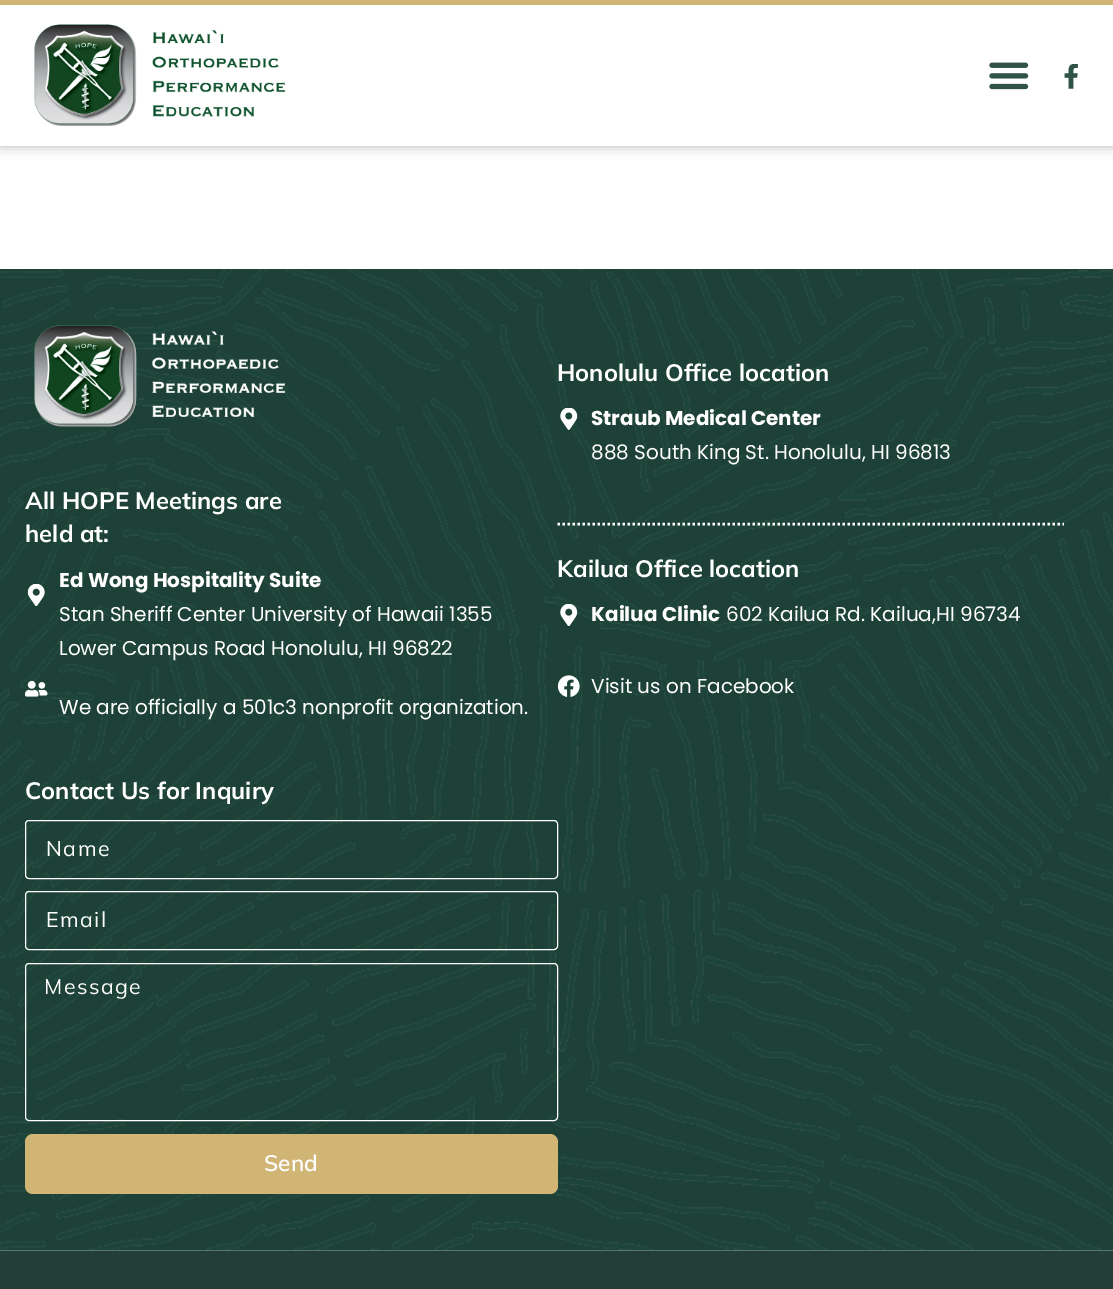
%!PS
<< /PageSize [1113 1289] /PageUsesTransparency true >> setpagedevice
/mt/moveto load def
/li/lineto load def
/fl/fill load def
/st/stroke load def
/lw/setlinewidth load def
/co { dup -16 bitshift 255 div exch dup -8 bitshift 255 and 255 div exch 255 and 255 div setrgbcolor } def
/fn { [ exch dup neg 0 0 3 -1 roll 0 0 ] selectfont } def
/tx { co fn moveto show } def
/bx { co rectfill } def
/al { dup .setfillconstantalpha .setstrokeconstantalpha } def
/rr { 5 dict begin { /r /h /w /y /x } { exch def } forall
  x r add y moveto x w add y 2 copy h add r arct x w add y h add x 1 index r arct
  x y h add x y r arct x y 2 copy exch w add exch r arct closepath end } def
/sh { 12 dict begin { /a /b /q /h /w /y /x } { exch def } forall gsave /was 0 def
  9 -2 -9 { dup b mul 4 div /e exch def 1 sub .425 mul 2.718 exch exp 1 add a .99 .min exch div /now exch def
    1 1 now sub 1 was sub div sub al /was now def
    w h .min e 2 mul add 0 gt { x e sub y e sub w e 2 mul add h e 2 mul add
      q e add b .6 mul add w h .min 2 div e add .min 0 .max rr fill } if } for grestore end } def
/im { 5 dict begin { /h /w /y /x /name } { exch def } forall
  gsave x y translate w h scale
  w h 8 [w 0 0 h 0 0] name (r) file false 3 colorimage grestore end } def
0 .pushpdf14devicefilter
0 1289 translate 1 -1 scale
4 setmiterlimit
0 0 1113 1289 16#FFFFFF bx
16#000000 co
0 0 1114 146 0 6 .3 sh
0 5 1113 141 16#FFFFFF bx
0 0 1113 5 16#D1B575 bx
(media/1.raw) 34 24 252 103 im
(media/2.raw) 989 62 40 28 im
(media/3.raw) 1064 64 14 25 im
0 269 1113 981 16#1D4137 bx
(media/4.raw) 0 269 1113 981 im
(media/5.raw) 34 325 252 102 im
(media/6.raw) 27 584 18 22 im
(media/7.raw) 25 680 23 17 im
(media/8.raw) 560 408 18 22 im
16#FFFFFF co
2.5 lw
[2.5 2.5] 0 setdash
557.5 524 mt 1064 524 li st
(media/9.raw) 560 604 18 22 im
(media/10.raw) 558 675 22 22 im
1 lw
[] 0 setdash
25.5 820.5 532 58 3.5 rr st
25.5 891.5 532 58 3.5 rr st
25.5 963.5 532 157 3.5 rr st
16#D1B575 co
25 1134 533 60 8 rr fl
0 1250 1113 1 16#59756D bx
0 1251 1113 38 16#233E37 bx
(All HOPE Meetings are) 25 509 /Mulish-Bold 23.75 16#FFFFFF tx
(held at:) 25 542 /Mulish-Bold 23.75 16#FFFFFF tx
(Ed Wong Hospitality Suite) 59 587 /Poppins-Bold 20 16#FFFFFF tx
(Stan Sheriff Center University of Hawaii 1355) 59 621 /Poppins-Regular 20 16#FFFFFF tx
(Lower Campus Road Honolulu, HI 96822) 59 655 /Poppins-Regular 20 16#FFFFFF tx
(We are officially a 501c3 nonprofit organization.) 59 714 /Poppins-Regular 20 16#FFFFFF tx
(Honolulu Office location) 557 381 /Mulish-Bold 23.75 16#FFFFFF tx
(Straub Medical Center) 591 425 /Poppins-Bold 20 16#FFFFFF tx
(888 South King St. Honolulu, HI 96813) 591 459 /Poppins-Regular 20 16#FFFFFF tx
(Kailua Office location) 557 577 /Mulish-Bold 23.75 16#FFFFFF tx
(Kailua Clinic) 591 621 /Poppins-Bold 20 16#FFFFFF tx
(602 Kailua Rd. Kailua,HI 96734) 726 621 /Poppins-Regular 20 16#FFFFFF tx
(Visit us on Facebook) 591 693 /Poppins-Regular 20 16#FFFFFF tx
(Contact Us for Inquiry) 25 799 /Mulish-Bold 23.75 16#FFFFFF tx
/Mulish-Regular 21.25 fn
46 856 mt 1.5 0 (Name) ashow
46 927 mt 1.5 0 (Email) ashow
44 994 mt 1.5 0 (Message) ashow
(Send) 264 1171 /Mulish-SemiBold 22.5 16#FFFFFF tx
.poppdf14devicefilter showpage
